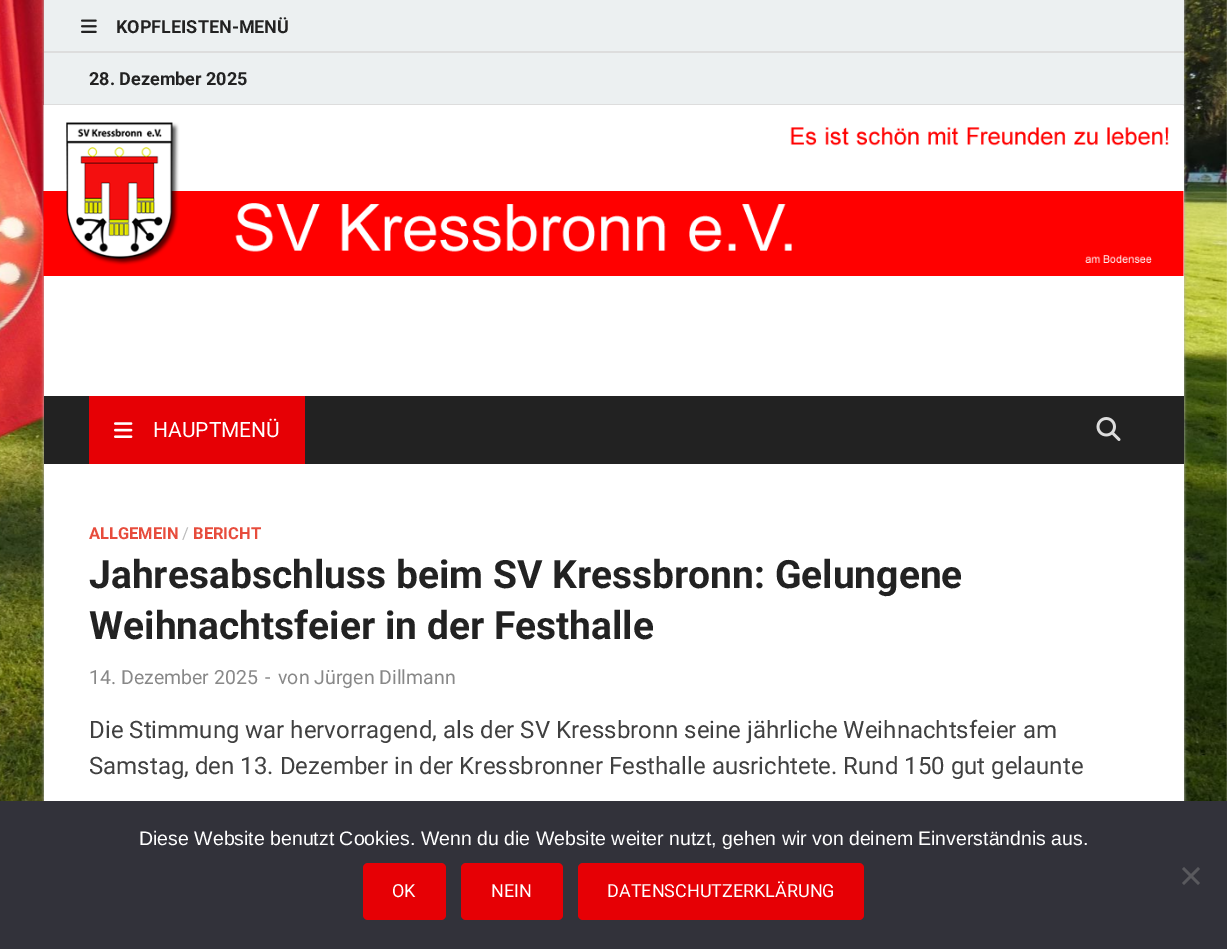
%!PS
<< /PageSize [1227 949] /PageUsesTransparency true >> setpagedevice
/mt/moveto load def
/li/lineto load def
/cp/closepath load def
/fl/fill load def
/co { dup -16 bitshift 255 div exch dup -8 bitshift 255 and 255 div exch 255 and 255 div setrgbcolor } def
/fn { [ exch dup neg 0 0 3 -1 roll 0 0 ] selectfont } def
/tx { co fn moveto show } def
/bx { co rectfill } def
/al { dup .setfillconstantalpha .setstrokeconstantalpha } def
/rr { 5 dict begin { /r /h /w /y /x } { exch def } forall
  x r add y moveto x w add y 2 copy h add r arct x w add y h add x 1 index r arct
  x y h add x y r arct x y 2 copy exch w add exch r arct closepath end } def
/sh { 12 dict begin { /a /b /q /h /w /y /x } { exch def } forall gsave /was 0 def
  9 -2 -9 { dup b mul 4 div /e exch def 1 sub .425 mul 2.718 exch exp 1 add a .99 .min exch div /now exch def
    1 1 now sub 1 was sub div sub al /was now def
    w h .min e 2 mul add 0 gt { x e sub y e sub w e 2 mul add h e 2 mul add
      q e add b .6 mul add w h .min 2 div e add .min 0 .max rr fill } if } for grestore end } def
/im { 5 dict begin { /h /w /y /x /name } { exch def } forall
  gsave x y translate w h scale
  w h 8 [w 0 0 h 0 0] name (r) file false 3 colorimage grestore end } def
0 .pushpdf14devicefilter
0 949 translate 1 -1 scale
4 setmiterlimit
0 0 1227 949 16#FFFFFF bx
(media/1.raw) 0 0 1227 801 im
16#BBBBBB co
44 0 1140 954 0 1.5 1 sh
44 106 1140 695 16#FFFFFF bx
44 0 1140 51 16#ECF0F1 bx
44 51 1140 2 16#DDDDDD bx
(media/2.raw) 81 19 16 14 im
44 53 1140 51 16#ECF0F1 bx
44 104 1140 2 16#DDDDDD bx
(media/3.raw) 43 105 1141 171 im
44 396 1140 68 16#222222 bx
89 396 216 68 16#E60005 bx
(media/4.raw) 114 422 19 16 im
(media/5.raw) 1096 417 25 24 im
0 801 1227 148 16#32323A bx
16#59595D co
1198 867 mt 1200 869 li 1184 885 li 1182 883 li cp fl
1182 869 mt 1184 867 li 1200 883 li 1198 885 li cp fl
16#E60005 co
363 863 83 57 5 rr fl
461 863 102 57 5 rr fl
578 863 286 57 5 rr fl
(KOPFLEISTEN-MENÜ) 116 33 /Roboto-Bold 18 16#222222 tx
(28. Dezember 2025) 89 85 /Roboto-Bold 18 16#222222 tx
(HAUPTMENÜ) 153 437 /Roboto-Regular 21 16#FFFFFF tx
(ALLGEMEIN) 89 539 /Roboto-Bold 16.5 16#E74C3C tx
(/) 182 539 /Roboto-Regular 16.5 16#BBBBBB tx
(BERICHT) 193 539 /Roboto-Bold 16.5 16#E74C3C tx
(Jahresabschluss beim SV Kressbronn: Gelungene) 89 588 /Roboto-Bold 39 16#222222 tx
(Weihnachtsfeier in der Festhalle) 89 639 /Roboto-Bold 39 16#222222 tx
(14. Dezember 2025) 89 684 /Roboto-Regular 19.5 16#888888 tx
(-) 265 684 /Roboto-Regular 19.5 16#888888 tx
(von Jürgen Dillmann) 278 684 /Roboto-Regular 19.5 16#888888 tx
(Die Stimmung war hervorragend, als der SV Kressbronn seine jährliche Weihnachtsfeier am) 89 738 /Roboto-Regular 24 16#404040 tx
(Samstag, den 13. Dezember in der Kressbronner Festhalle ausrichtete. Rund 150 gut gelaunte) 89 774 /Roboto-Regular 24 16#404040 tx
(Diese Website benutzt Cookies. Wenn du die Website weiter nutzt, gehen wir von deinem Einverständnis aus.) 139 845 /LiberationSans-Regular 19.5 16#FFFFFF tx
(OK) 392 897 /Roboto-Regular 18 16#FFFFFF tx
(NEIN) 491 897 /Roboto-Regular 18 16#FFFFFF tx
(DATENSCHUTZERKLÄRUNG) 607 897 /Roboto-Regular 18 16#FFFFFF tx
.poppdf14devicefilter showpage
